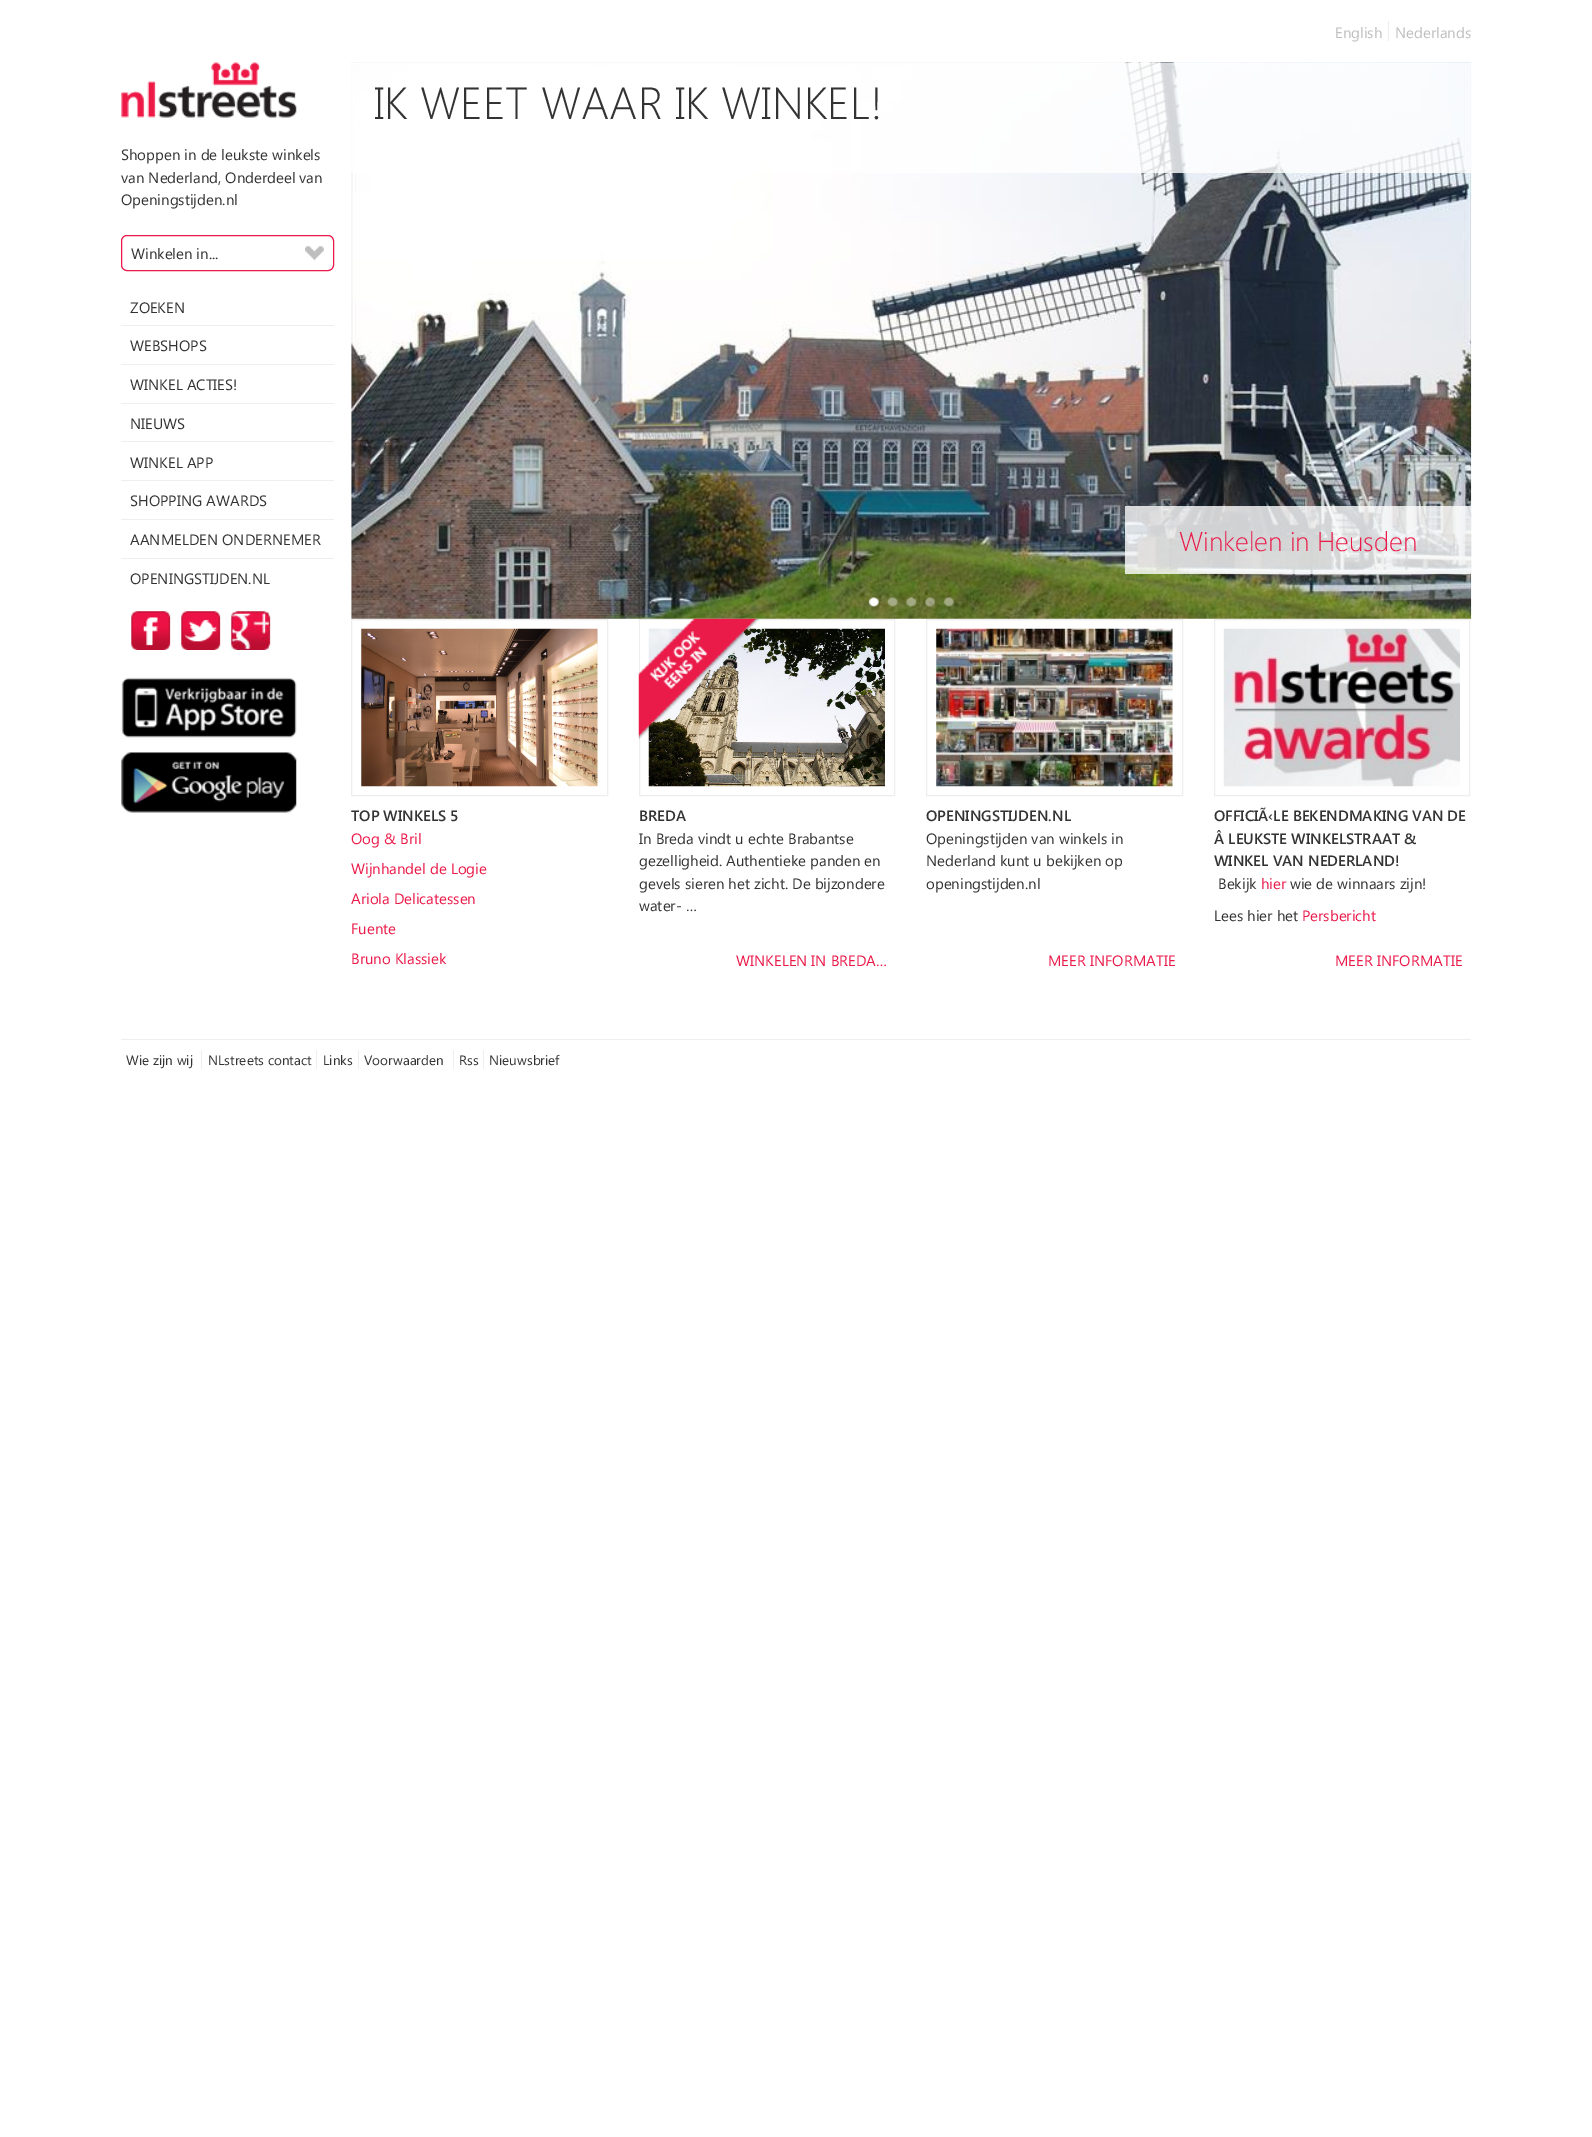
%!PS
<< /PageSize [1592 2137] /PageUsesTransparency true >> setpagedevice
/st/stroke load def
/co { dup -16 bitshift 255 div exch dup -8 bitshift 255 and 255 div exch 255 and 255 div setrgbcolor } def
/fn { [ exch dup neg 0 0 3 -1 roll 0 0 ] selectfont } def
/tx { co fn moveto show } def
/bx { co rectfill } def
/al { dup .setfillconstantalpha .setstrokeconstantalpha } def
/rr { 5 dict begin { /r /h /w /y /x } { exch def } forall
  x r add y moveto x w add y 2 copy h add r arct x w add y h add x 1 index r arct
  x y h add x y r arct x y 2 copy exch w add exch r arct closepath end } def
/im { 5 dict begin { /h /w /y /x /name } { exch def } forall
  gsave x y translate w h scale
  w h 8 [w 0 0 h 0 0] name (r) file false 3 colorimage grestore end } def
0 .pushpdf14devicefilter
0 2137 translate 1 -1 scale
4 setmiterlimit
0 0 1592 2137 16#FFFFFF bx
(media/1.raw) 121 62 176 56 im
16#EA1A49 co
121.5 235.5 212 35 5.5 rr st
(media/2.raw) 305 246 19 15 im
121 325 213 1 16#EEEEEE bx
121 364 213 1 16#EEEEEE bx
121 403 213 1 16#EEEEEE bx
121 441 213 1 16#EEEEEE bx
121 480 213 1 16#EEEEEE bx
121 519 213 1 16#EEEEEE bx
121 558 213 1 16#EEEEEE bx
(media/3.raw) 131 611 40 39 im
(media/4.raw) 181 611 40 39 im
(media/5.raw) 230 611 41 39 im
(media/6.raw) 121 677 176 61 im
(media/7.raw) 121 752 176 61 im
1388 21 1 20 16#EEEEEE bx
(media/8.raw) 351 62 1121 557 im
0.8 al
351 63 1120 110 16#FFFFFF bx
1125 506 346 68 16#FFFFFF bx
1 al
(media/9.raw) 868 597 11 10 im
(media/10.raw) 887 597 11 10 im
(media/11.raw) 906 597 11 10 im
(media/12.raw) 925 597 10 10 im
(media/13.raw) 943 597 11 10 im
16#EEEEEE co
351.5 619.5 256 176 rectstroke
(media/14.raw) 361 628 237 159 im
639.5 619.5 255 176 rectstroke
(media/16.raw) 648 628 237 159 im
(media/15.raw) 638 618 122 122 im
926.5 619.5 256 176 rectstroke
(media/17.raw) 936 628 237 159 im
1214.5 619.5 255 176 rectstroke
(media/18.raw) 1223 628 237 159 im
121 1039 1350 1 16#EEEEEE bx
201 1050 1 19 16#EEEEEE bx
316 1050 1 19 16#EEEEEE bx
358 1050 1 19 16#EEEEEE bx
453 1050 1 19 16#EEEEEE bx
483 1050 1 19 16#EEEEEE bx
(Shoppen in de leukste winkels) 121 160 /SegoeUI-Regular 15 16#333333 tx
(van Nederland, Onderdeel van) 121 183 /SegoeUI-Regular 15 16#333333 tx
(Openingstijden.nl) 121 205 /SegoeUI-Regular 15 16#333333 tx
(Winkelen in...) 131 259 /SegoeUI-Regular 15 16#333333 tx
(ZOEKEN) 130 313 /SegoeUI-Regular 15 16#333333 tx
(WEBSHOPS) 130 351 /SegoeUI-Regular 15 16#333333 tx
(WINKEL ACTIES!) 130 390 /SegoeUI-Regular 15 16#333333 tx
(NIEUWS) 130 429 /SegoeUI-Regular 15 16#333333 tx
(WINKEL APP) 130 468 /SegoeUI-Regular 15 16#333333 tx
(SHOPPING AWARDS) 130 506 /SegoeUI-Regular 15 16#333333 tx
(AANMELDEN ONDERNEMER) 130 545 /SegoeUI-Regular 15 16#333333 tx
(OPENINGSTIJDEN.NL) 130 584 /SegoeUI-Regular 15 16#333333 tx
(English) 1335 38 /SegoeUI-Regular 15 16#BEBEBE tx
(Nederlands) 1395 38 /SegoeUI-Regular 15 16#BEBEBE tx
(IK WEET WAAR IK WINKEL!) 374 119 /SegoeUI-Light 45 16#333333 tx
(Winkelen in Heusden) 1179 551 /SegoeUI-Light 27 16#EA1A49 tx
(TOP WINKELS 5) 351 821 /SegoeUI-SemiBold 15 16#333333 tx
(Oog & Bril) 351 844 /SegoeUI-Regular 15 16#EA1A49 tx
(Wijnhandel de Logie) 351 874 /SegoeUI-Regular 15 16#EA1A49 tx
(Ariola Delicatessen) 351 904 /SegoeUI-Regular 15 16#EA1A49 tx
(Fuente) 351 934 /SegoeUI-Regular 15 16#EA1A49 tx
(Bruno Klassiek) 351 964 /SegoeUI-Regular 15 16#EA1A49 tx
(BREDA) 639 821 /SegoeUI-SemiBold 15 16#333333 tx
(In Breda vindt u echte Brabantse) 639 844 /SegoeUI-Regular 15 16#333333 tx
(gezelligheid. Authentieke panden en) 639 866 /SegoeUI-Regular 15 16#333333 tx
(gevels sieren het zicht. De bijzondere) 639 889 /SegoeUI-Regular 15 16#333333 tx
(water- …) 639 911 /SegoeUI-Regular 15 16#333333 tx
(WINKELEN IN BREDA…) 736 966 /SegoeUI-Regular 15 16#EA1A49 tx
(OPENINGSTIJDEN.NL) 926 821 /SegoeUI-SemiBold 15 16#333333 tx
(Openingstijden van winkels in) 926 844 /SegoeUI-Regular 15 16#333333 tx
(Nederland kunt u bekijken op) 926 866 /SegoeUI-Regular 15 16#333333 tx
(openingstijden.nl) 926 889 /SegoeUI-Regular 15 16#333333 tx
(MEER INFORMATIE) 1048 966 /SegoeUI-Regular 15 16#EA1A49 tx
(OFFICIÃ‹LE BEKENDMAKING VAN DE) 1214 821 /SegoeUI-SemiBold 15 16#333333 tx
(Â LEUKSTE WINKELSTRAAT &) 1214 844 /SegoeUI-SemiBold 15 16#333333 tx
(WINKEL VAN NEDERLAND!) 1214 866 /SegoeUI-SemiBold 15 16#333333 tx
(Bekijk) 1218 889 /SegoeUI-Regular 15 16#333333 tx
(hier) 1261 889 /SegoeUI-Regular 15 16#EA1A49 tx
(wie de winnaars zijn!) 1290 889 /SegoeUI-Regular 15 16#333333 tx
(Lees hier het) 1214 921 /SegoeUI-Regular 15 16#333333 tx
(Persbericht) 1302 921 /SegoeUI-Regular 15 16#EA1A49 tx
(MEER INFORMATIE) 1335 966 /SegoeUI-Regular 15 16#EA1A49 tx
(Wie zijn wij) 126 1065 /SegoeUI-Regular 13.5 16#333333 tx
(NLstreets contact) 208 1065 /SegoeUI-Regular 13.5 16#333333 tx
(Links) 323 1065 /SegoeUI-Regular 13.5 16#333333 tx
(Voorwaarden) 364 1065 /SegoeUI-Regular 13.5 16#333333 tx
(Rss) 459 1065 /SegoeUI-Regular 13.5 16#333333 tx
(Nieuwsbrief) 489 1065 /SegoeUI-Regular 13.5 16#333333 tx
.poppdf14devicefilter showpage
